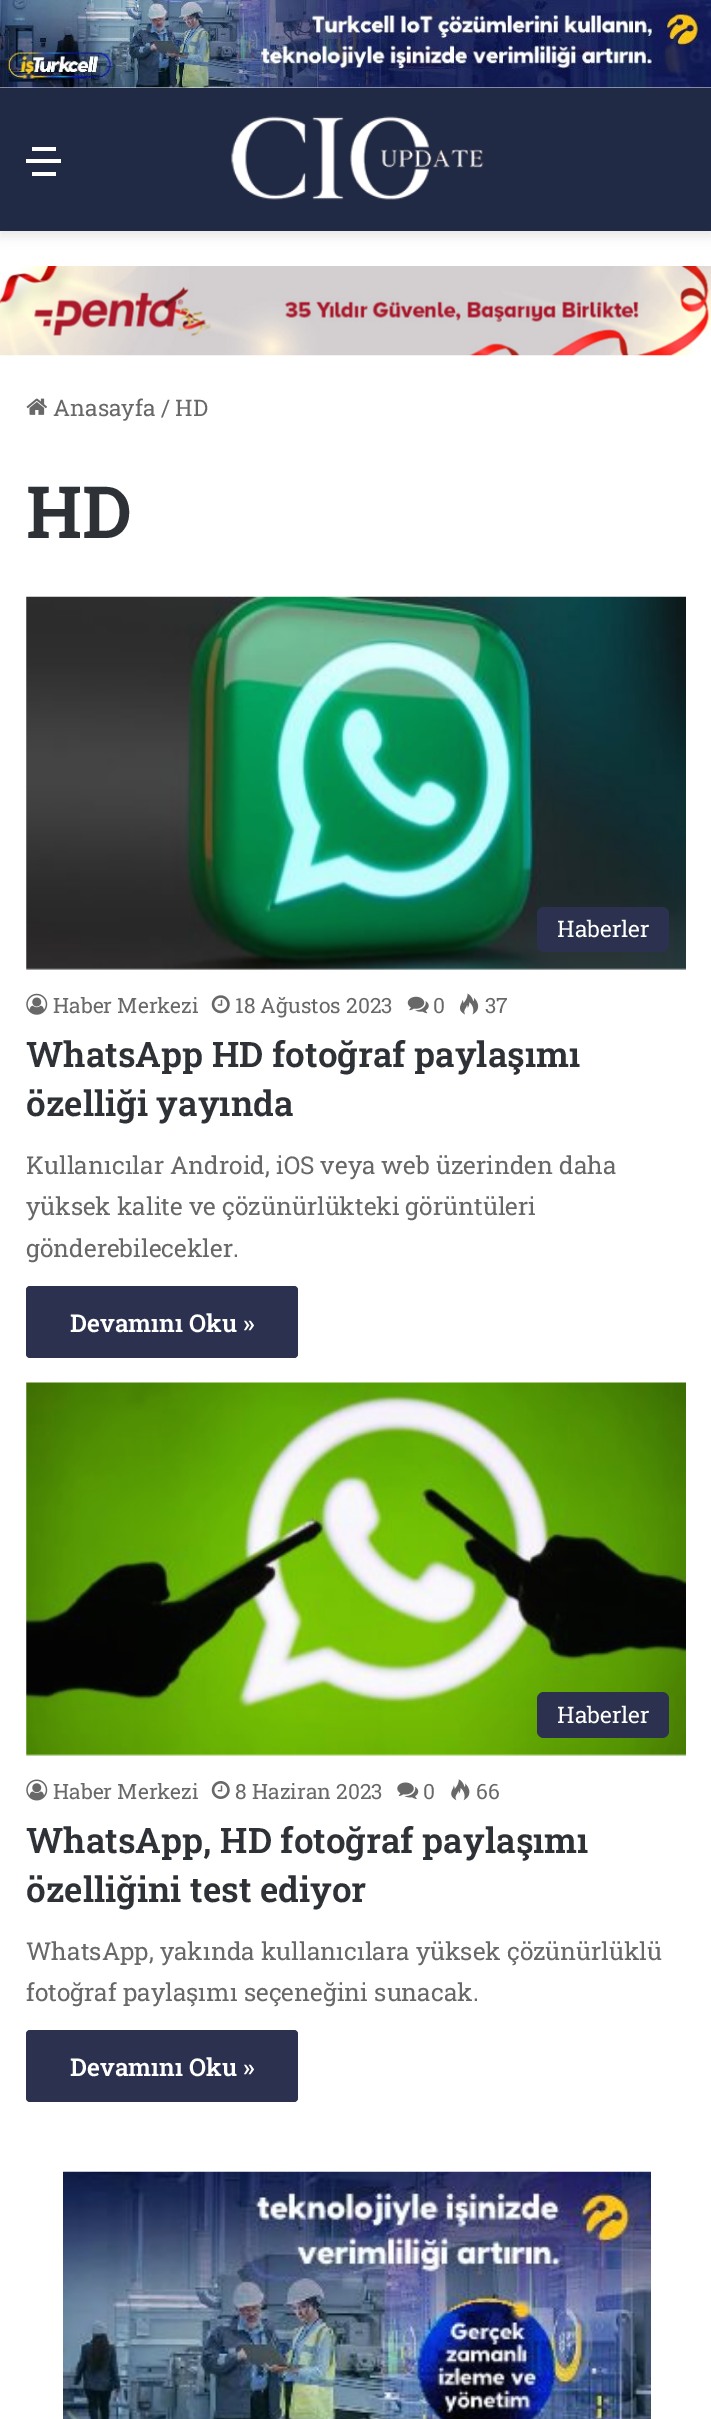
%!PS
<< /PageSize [711 2419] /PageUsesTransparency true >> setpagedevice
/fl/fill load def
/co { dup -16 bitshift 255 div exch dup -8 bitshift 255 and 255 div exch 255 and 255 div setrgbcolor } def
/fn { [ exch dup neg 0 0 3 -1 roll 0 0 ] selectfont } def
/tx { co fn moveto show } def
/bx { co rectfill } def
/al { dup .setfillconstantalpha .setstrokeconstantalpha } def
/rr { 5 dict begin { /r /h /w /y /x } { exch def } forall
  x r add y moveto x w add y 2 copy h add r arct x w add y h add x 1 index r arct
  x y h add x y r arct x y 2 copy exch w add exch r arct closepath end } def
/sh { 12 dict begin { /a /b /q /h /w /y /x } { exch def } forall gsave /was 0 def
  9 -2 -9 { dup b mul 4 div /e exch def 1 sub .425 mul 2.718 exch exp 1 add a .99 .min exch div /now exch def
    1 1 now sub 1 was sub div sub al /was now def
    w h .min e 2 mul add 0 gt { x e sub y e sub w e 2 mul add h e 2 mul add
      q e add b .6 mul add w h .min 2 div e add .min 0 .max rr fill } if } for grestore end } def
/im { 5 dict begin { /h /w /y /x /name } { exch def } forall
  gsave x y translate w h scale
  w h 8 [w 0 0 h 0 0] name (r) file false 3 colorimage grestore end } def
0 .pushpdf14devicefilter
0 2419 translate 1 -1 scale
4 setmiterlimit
0 0 711 2419 16#FFFFFF bx
(media/1.raw) 0 0 711 88 im
16#000000 co
0 93 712 143 0 6 .1 sh
0 88 711 143 16#202A44 bx
26 159 35 4 16#FFFFFF bx
32 147 24 4 16#FFFFFF bx
32 172 24 4 16#FFFFFF bx
(media/2.raw) 231 116 253 84 im
(media/3.raw) 0 266 711 90 im
(media/4.raw) 26 398 21 17 im
(media/5.raw) 26 596 660 374 im
16#2B314E co
537 907 132 45 7 rr fl
(media/6.raw) 26 993 22 22 im
(media/7.raw) 211 995 19 19 im
(media/8.raw) 407 996 22 18 im
(media/9.raw) 460 993 19 22 im
26 1286 272 72 4 rr fl
(media/10.raw) 26 1382 660 374 im
537 1692 132 46 7 rr fl
(media/11.raw) 26 1779 22 22 im
(media/12.raw) 211 1781 19 18 im
(media/13.raw) 397 1782 22 17 im
(media/14.raw) 451 1779 19 22 im
26 2030 272 72 4 rr fl
(media/15.raw) 63 2171 588 248 im
(Anasayfa) 53 416 /RobotoSlab-Regular 22.75 16#686868 tx
(/) 161 416 /RobotoSlab-Regular 22.75 16#686868 tx
(HD) 175 416 /RobotoSlab-Regular 22.75 16#686868 tx
(HD) 26 538 /RobotoSlab-SemiBold 72 16#2E3136 tx
(Haberler) 557 937 /RobotoSlab-Regular 22.75 16#FFFFFF tx
(Haber Merkezi) 53 1013 /RobotoSlab-Regular 21 16#686868 tx
(18 Ağustos 2023) 235 1013 /RobotoSlab-Regular 21 16#686868 tx
(0) 433 1013 /RobotoSlab-Regular 21 16#686868 tx
(37) 485 1013 /RobotoSlab-Regular 21 16#686868 tx
(WhatsApp HD fotoğraf paylaşımı) 26 1067 /RobotoSlab-SemiBold 35 16#2E3136 tx
(özelliği yayında) 26 1116 /RobotoSlab-SemiBold 35 16#2E3136 tx
(Kullanıcılar Android, iOS veya web üzerinden daha) 26 1174 /RobotoSlab-Regular 24.5 16#686868 tx
(yüksek kalite ve çözünürlükteki görüntüleri) 26 1215 /RobotoSlab-Regular 24.5 16#686868 tx
(gönderebilecekler.) 26 1257 /RobotoSlab-Regular 24.5 16#686868 tx
(Devamını Oku ») 70 1332 /RobotoSlab-SemiBold 24.5 16#FFFFFF tx
(Haberler) 557 1723 /RobotoSlab-Regular 22.75 16#FFFFFF tx
(Haber Merkezi) 53 1799 /RobotoSlab-Regular 21 16#686868 tx
(8 Haziran 2023) 235 1799 /RobotoSlab-Regular 21 16#686868 tx
(0) 423 1799 /RobotoSlab-Regular 21 16#686868 tx
(66) 476 1799 /RobotoSlab-Regular 21 16#686868 tx
(WhatsApp, HD fotoğraf paylaşımı) 26 1853 /RobotoSlab-SemiBold 35 16#2E3136 tx
(özelliğini test ediyor) 26 1902 /RobotoSlab-SemiBold 35 16#2E3136 tx
(WhatsApp, yakında kullanıcılara yüksek çözünürlüklü) 26 1960 /RobotoSlab-Regular 24.5 16#686868 tx
(fotoğraf paylaşımı seçeneğini sunacak.) 26 2001 /RobotoSlab-Regular 24.5 16#686868 tx
(Devamını Oku ») 70 2076 /RobotoSlab-SemiBold 24.5 16#FFFFFF tx
.poppdf14devicefilter showpage
